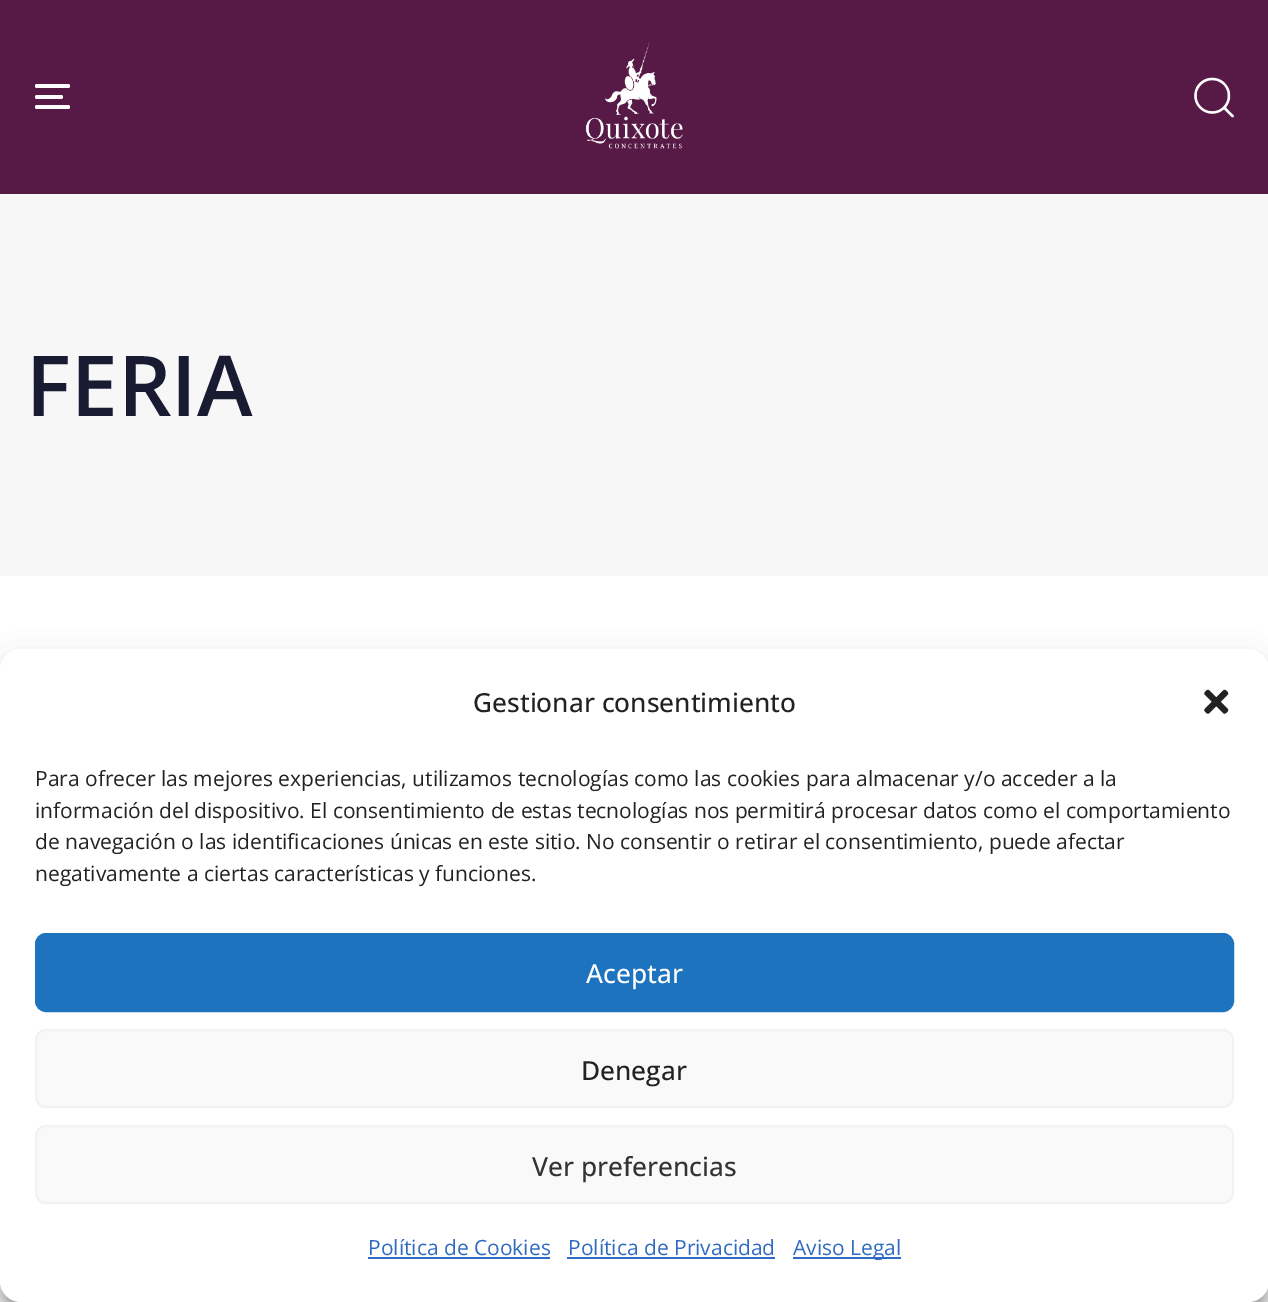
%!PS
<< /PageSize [1268 1302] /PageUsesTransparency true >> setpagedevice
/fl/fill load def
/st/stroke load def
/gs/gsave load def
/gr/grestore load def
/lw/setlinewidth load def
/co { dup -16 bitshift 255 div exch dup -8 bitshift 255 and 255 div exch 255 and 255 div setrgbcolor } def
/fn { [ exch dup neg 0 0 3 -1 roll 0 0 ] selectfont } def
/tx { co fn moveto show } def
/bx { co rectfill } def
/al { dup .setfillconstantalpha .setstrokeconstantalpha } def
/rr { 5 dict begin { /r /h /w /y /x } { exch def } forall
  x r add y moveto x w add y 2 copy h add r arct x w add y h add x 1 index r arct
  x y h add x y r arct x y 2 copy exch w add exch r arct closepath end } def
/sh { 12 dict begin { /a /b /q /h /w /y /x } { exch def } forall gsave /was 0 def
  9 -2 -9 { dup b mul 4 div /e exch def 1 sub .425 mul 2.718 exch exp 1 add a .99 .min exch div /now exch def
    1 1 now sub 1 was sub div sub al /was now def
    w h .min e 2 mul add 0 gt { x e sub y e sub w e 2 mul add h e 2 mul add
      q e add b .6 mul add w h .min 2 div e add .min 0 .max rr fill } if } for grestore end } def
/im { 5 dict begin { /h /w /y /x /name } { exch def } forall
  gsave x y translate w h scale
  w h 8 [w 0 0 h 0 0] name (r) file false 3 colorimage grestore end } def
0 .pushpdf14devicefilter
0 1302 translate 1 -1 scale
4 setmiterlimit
0 0 1268 1302 16#FFFFFF bx
0 0 1268 194 16#571946 bx
16#FFFFFF co
35 84 35 4 2 rr fl
35 95 28 4 2 rr fl
35 105 35 4 2 rr fl
(media/1.raw) 585 42 98 107 im
(media/2.raw) 1194 77 40 41 im
0 194 1268 382 16#F7F7F7 bx
16#000000 co
0 660 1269 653 21 5 .23 sh
0 667 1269 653 21 17.5 .19 sh
16#FFFFFF co
0 649 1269 653 21 rr fl
(media/3.raw) 1204 689 25 25 im
16#1E73BE co
36 934 1197 77 10 rr gs fl gr
2 lw
st
16#F9F9F9 co
36 1030 1197 77 10 rr gs fl gr
16#F2F2F2 co
st
16#F9F9F9 co
36 1126 1197 77 10 rr gs fl gr
16#F2F2F2 co
st
368 1257 182 2 16#316BC1 bx
567 1257 208 2 16#316BC1 bx
793 1257 108 2 16#316BC1 bx
(FERIA) 26 416 /OpenSans-SemiBold 84 16#181B31 tx
(Gestionar consentimiento) 473 712 /OpenSans-Medium 26.25 16#222222 tx
(Para ofrecer las mejores experiencias, utilizamos tecnologías como las cookies para almacenar y/o acceder a la) 35 786 /OpenSans-Regular 21 16#222222 tx
(información del dispositivo. El consentimiento de estas tecnologías nos permitirá procesar datos como el comportamiento) 35 818 /OpenSans-Regular 21 16#222222 tx
(de navegación o las identificaciones únicas en este sitio. No consentir o retirar el consentimiento, puede afectar) 35 849 /OpenSans-Regular 21 16#222222 tx
(negativamente a ciertas características y funciones.) 35 881 /OpenSans-Regular 21 16#222222 tx
(Aceptar) 586 983 /OpenSans-Medium 26.25 16#FFFFFF tx
(Denegar) 581 1080 /OpenSans-Medium 26.25 16#222222 tx
(Ver preferencias) 532 1176 /OpenSans-Medium 26.25 16#333333 tx
(Política de Cookies) 368 1255 /OpenSans-Regular 21 16#316BC1 tx
(Política de Privacidad) 568 1255 /OpenSans-Regular 21 16#316BC1 tx
(Aviso Legal) 793 1255 /OpenSans-Regular 21 16#316BC1 tx
.poppdf14devicefilter showpage
